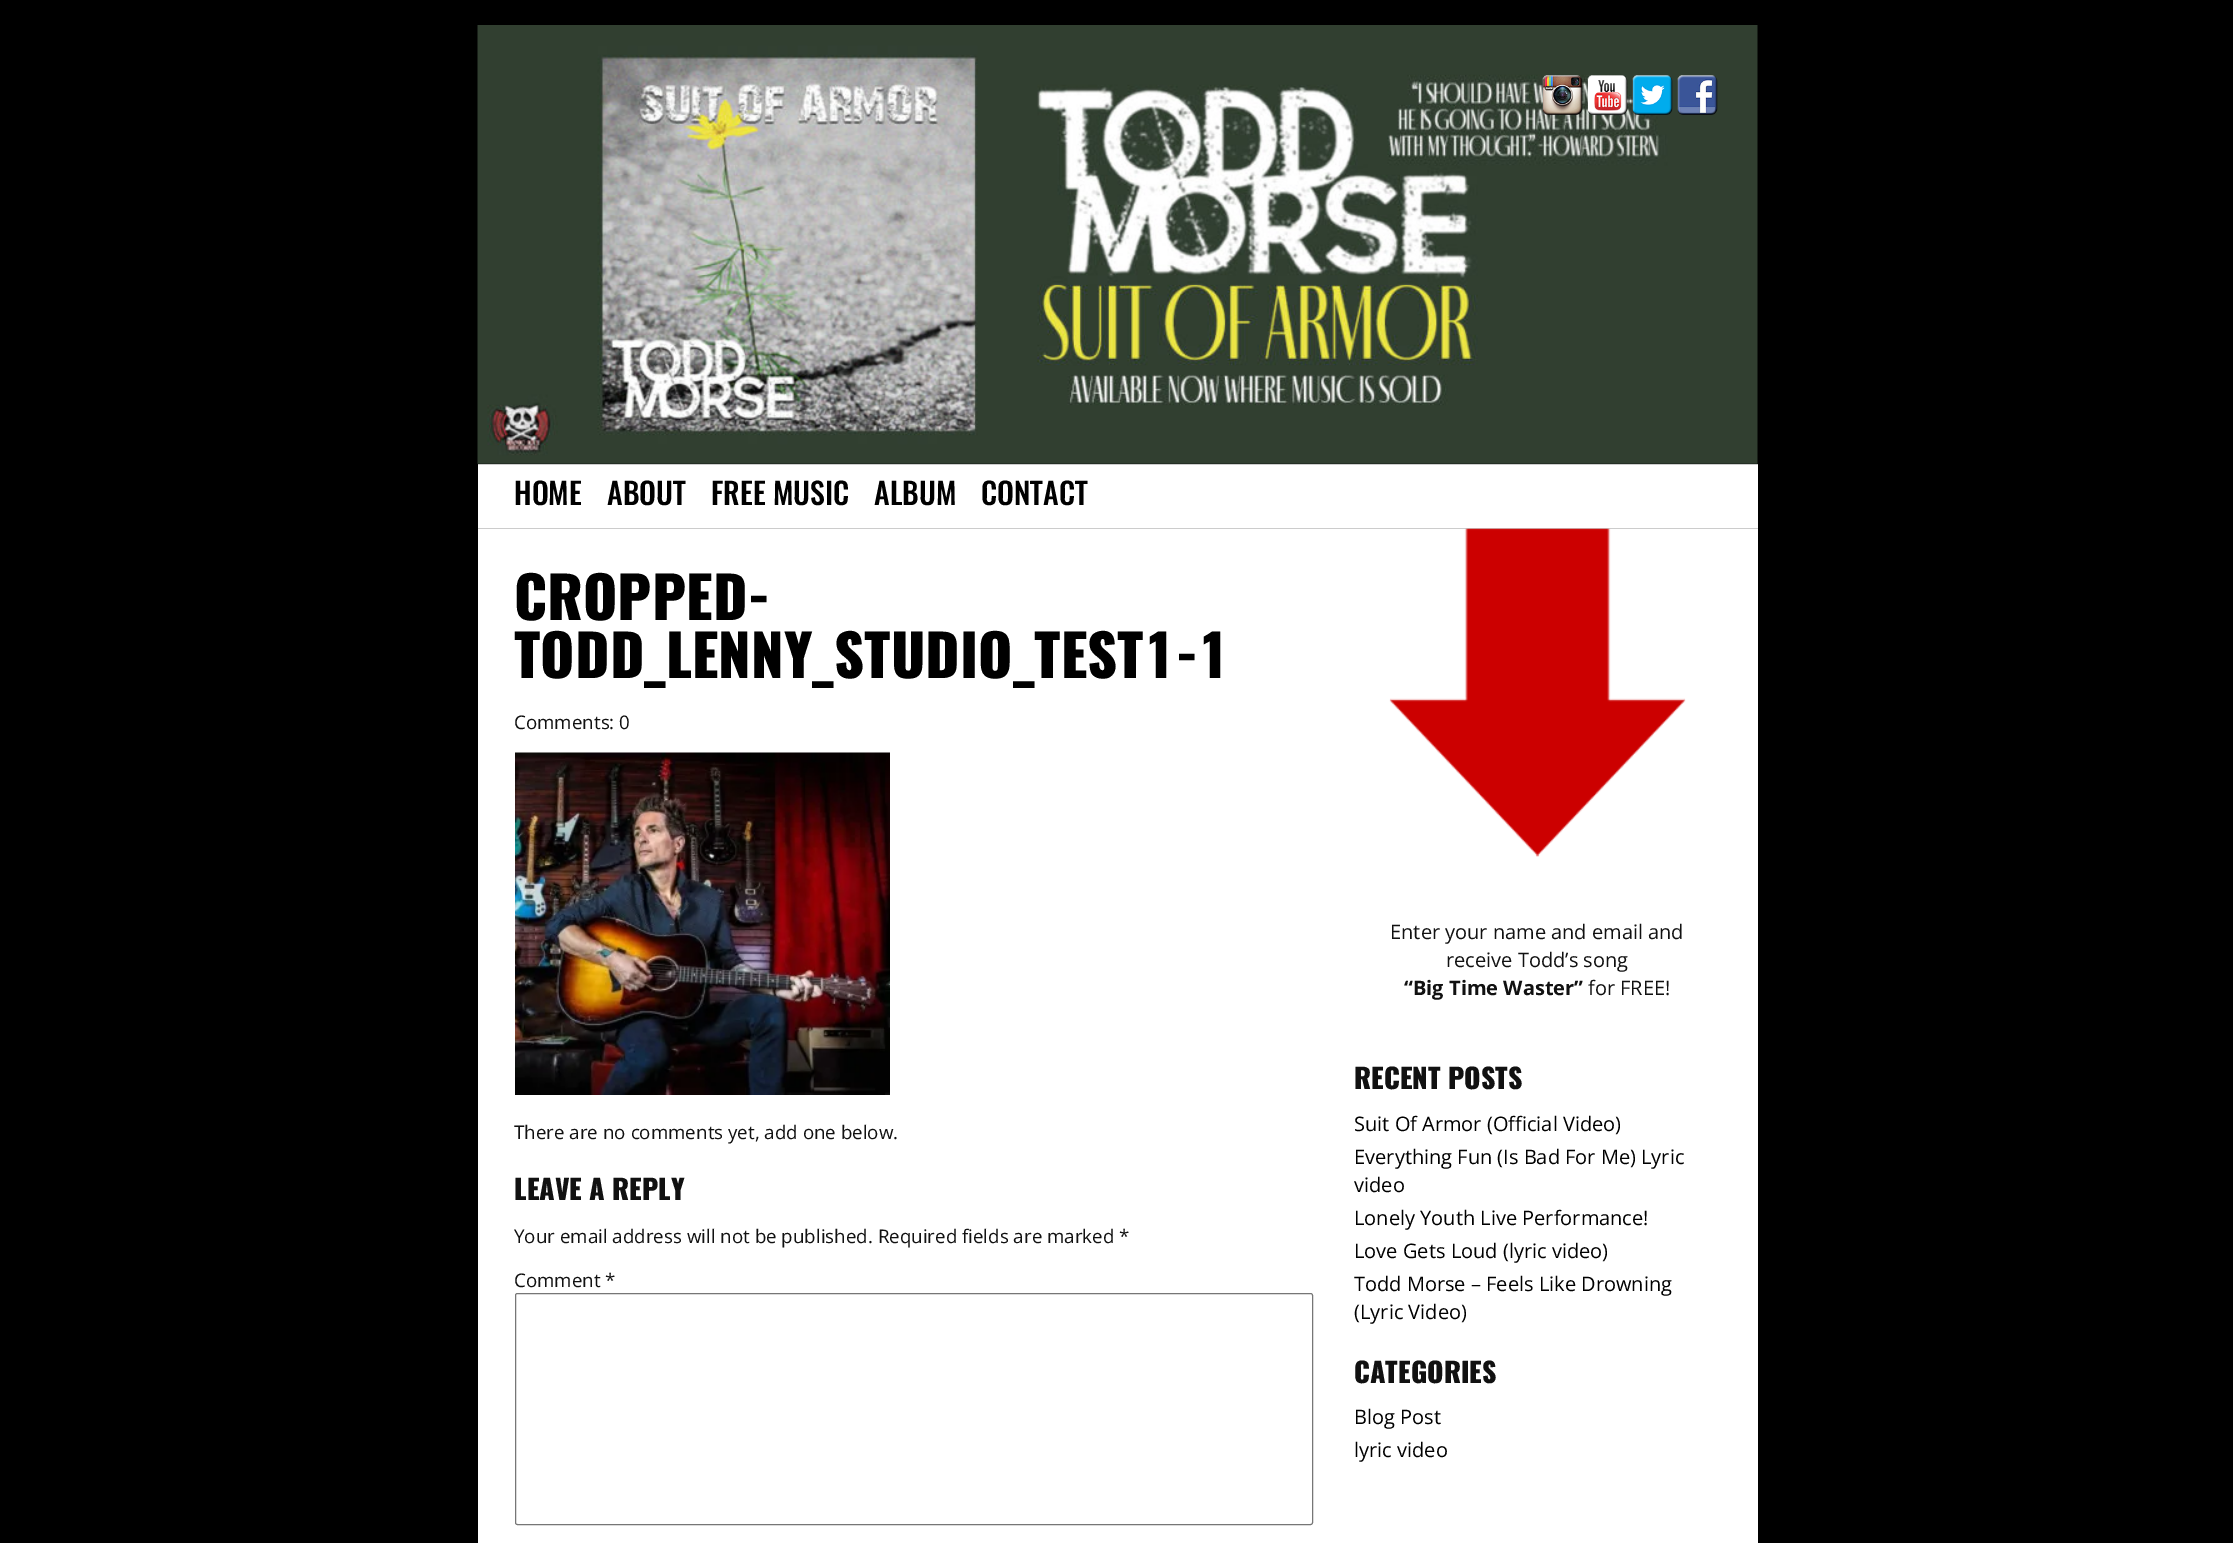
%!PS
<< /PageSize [2233 1543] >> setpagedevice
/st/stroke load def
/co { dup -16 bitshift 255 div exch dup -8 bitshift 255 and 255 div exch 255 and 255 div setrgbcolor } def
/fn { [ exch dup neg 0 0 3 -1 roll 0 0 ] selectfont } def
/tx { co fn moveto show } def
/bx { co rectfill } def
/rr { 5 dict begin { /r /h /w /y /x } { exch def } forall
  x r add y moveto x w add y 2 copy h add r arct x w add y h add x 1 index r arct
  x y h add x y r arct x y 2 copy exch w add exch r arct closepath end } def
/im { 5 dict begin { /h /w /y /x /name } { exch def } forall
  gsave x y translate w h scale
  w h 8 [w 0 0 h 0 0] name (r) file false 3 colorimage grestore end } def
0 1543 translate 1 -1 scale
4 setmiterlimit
0 0 2233 1543 16#000000 bx
478 465 1280 1078 16#FFFFFF bx
(media/1.raw) 477 25 1281 439 im
(media/2.raw) 1542 75 41 40 im
(media/3.raw) 1587 75 41 40 im
(media/4.raw) 1632 75 41 40 im
(media/5.raw) 1677 75 41 40 im
478 464 1280 1 16#CCCCCC bx
478 528 1280 1 16#CCCCCC bx
(media/6.raw) 515 752 375 343 im
16#767676 co
515.5 1293.5 797 231 2 rr st
(media/7.raw) 1389 528 297 329 im
(HOME) 514 505 /Oswald-Medium 30 16#000000 tx
(ABOUT) 607 505 /Oswald-Medium 30 16#000000 tx
(FREE MUSIC) 711 505 /Oswald-Medium 30 16#000000 tx
(ALBUM) 874 505 /Oswald-Medium 30 16#000000 tx
(CONTACT) 981 505 /Oswald-Medium 30 16#000000 tx
(CROPPED-) 514 620 /Oswald-Black 57.5 16#000000 tx
(TODD_LENNY_STUDIO_TEST1-1) 514 678 /Oswald-Black 57.5 16#000000 tx
(Comments: 0) 514 729 /OpenSans-Regular 18.75 16#111111 tx
(There are no comments yet, add one below.) 514 1139 /OpenSans-Regular 18.75 16#111111 tx
(LEAVE A REPLY) 514 1200 /Oswald-Black 27.5 16#111111 tx
(Your email address will not be published. Required fields are marked *) 514 1243 /OpenSans-Regular 18.75 16#111111 tx
(Comment *) 514 1287 /OpenSans-Regular 18.75 16#111111 tx
(Enter your name and email and) 1390 939 /OpenSans-Regular 20 16#111111 tx
(receive Todd’s song) 1446 967 /OpenSans-Regular 20 16#111111 tx
(“Big Time Waster”) 1404 995 /OpenSans-Bold 20 16#111111 tx
(for FREE!) 1588 995 /OpenSans-Regular 20 16#111111 tx
(RECENT POSTS) 1354 1089 /Oswald-Black 27.5 16#111111 tx
(Suit Of Armor \(Official Video\)) 1354 1131 /OpenSans-Regular 20 16#000000 tx
(Everything Fun \(Is Bad For Me\) Lyric) 1354 1164 /OpenSans-Regular 20 16#000000 tx
(video) 1354 1192 /OpenSans-Regular 20 16#000000 tx
(Lonely Youth Live Performance!) 1354 1225 /OpenSans-Regular 20 16#000000 tx
(Love Gets Loud \(lyric video\)) 1354 1258 /OpenSans-Regular 20 16#000000 tx
(Todd Morse – Feels Like Drowning) 1354 1291 /OpenSans-Regular 20 16#000000 tx
(\(Lyric Video\)) 1354 1319 /OpenSans-Regular 20 16#000000 tx
(CATEGORIES) 1354 1383 /Oswald-Black 27.5 16#111111 tx
(Blog Post) 1354 1424 /OpenSans-Regular 20 16#000000 tx
(lyric video) 1354 1457 /OpenSans-Regular 20 16#000000 tx
showpage
